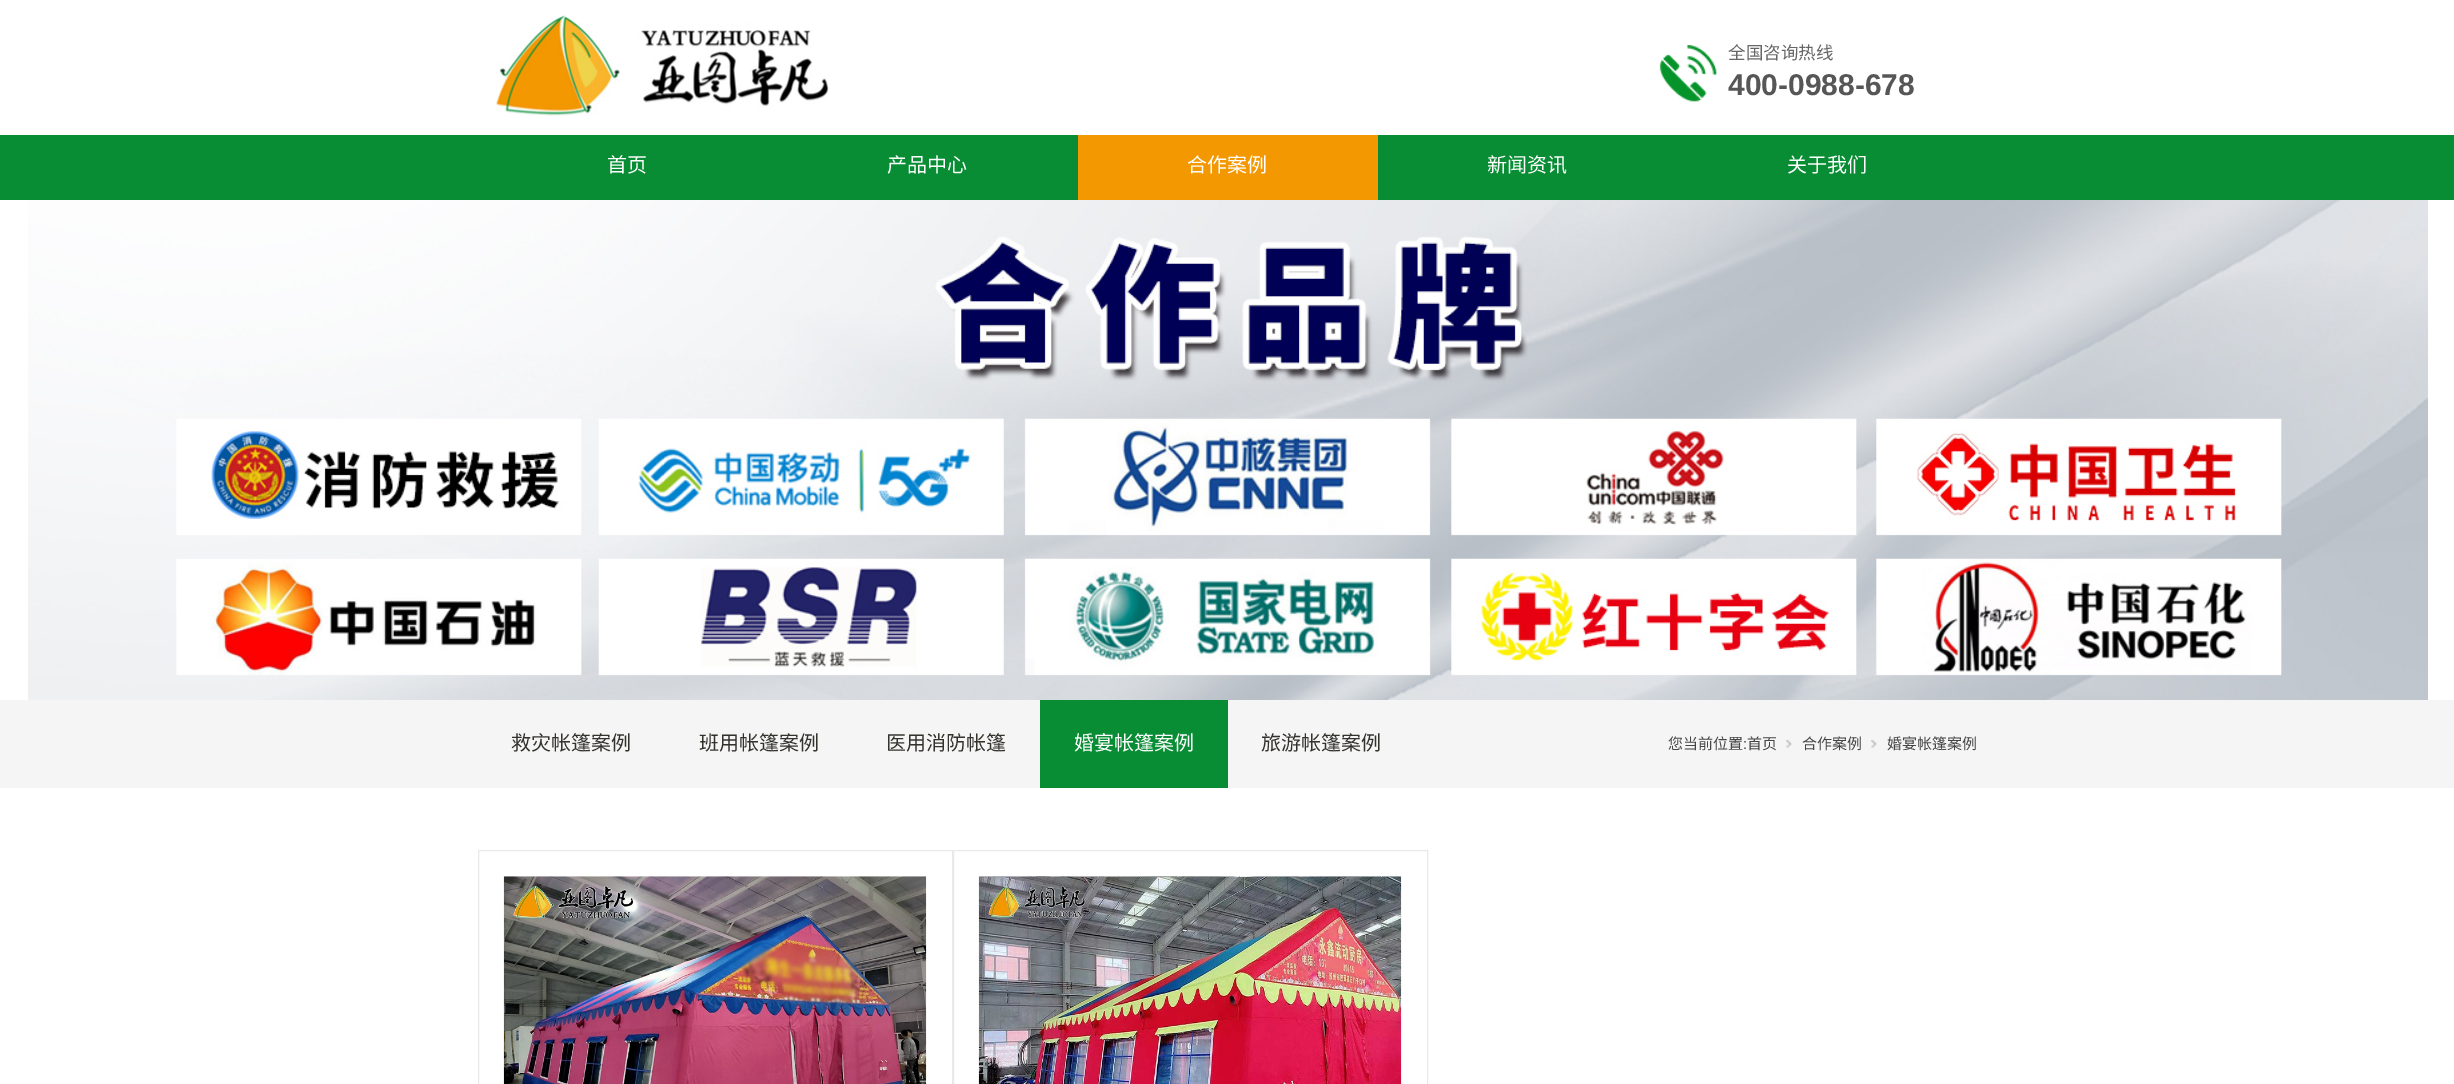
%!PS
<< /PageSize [2454 1084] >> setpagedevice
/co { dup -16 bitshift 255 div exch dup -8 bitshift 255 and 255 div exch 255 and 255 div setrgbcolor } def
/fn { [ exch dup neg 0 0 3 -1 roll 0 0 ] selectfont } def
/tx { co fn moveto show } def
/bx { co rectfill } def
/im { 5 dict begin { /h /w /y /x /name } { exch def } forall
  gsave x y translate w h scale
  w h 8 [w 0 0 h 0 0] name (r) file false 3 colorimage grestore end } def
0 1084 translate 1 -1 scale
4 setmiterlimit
0 0 2454 1084 16#FFFFFF bx
(media/1.raw) 496 15 333 101 im
(media/2.raw) 1659 45 58 57 im
0 135 2454 65 16#088D34 bx
1078 135 300 65 16#F39801 bx
(media/3.raw) 28 200 2400 500 im
0 700 2454 88 16#F5F5F5 bx
1040 700 188 88 16#088D34 bx
(media/4.raw) 1786 740 6 8 im
(media/4.raw) 1871 740 6 8 im
16#E9E9E9 co
478.5 850.5 474 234 rectstroke
(media/5.raw) 503 876 424 208 im
953.5 850.5 474 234 rectstroke
(media/6.raw) 978 876 424 208 im
(全国咨询热线) 1728 59 /NotoSansCJKSC-Regular 17.5 16#666666 tx
(400-0988-678) 1728 95 /LiberationSans-Bold 30 16#565656 tx
(首页) 607 172 /NotoSansCJKSC-Regular 20 16#FFFFFF tx
(产品中心) 887 172 /NotoSansCJKSC-Regular 20 16#FFFFFF tx
(合作案例) 1187 172 /NotoSansCJKSC-Regular 20 16#FFFFFF tx
(新闻资讯) 1487 172 /NotoSansCJKSC-Regular 20 16#FFFFFF tx
(关于我们) 1787 172 /NotoSansCJKSC-Regular 20 16#FFFFFF tx
(救灾帐篷案例) 511 750 /NotoSansCJKSC-Regular 20 16#33322D tx
(班用帐篷案例) 699 750 /NotoSansCJKSC-Regular 20 16#33322D tx
(医用消防帐篷) 886 750 /NotoSansCJKSC-Regular 20 16#33322D tx
(婚宴帐篷案例) 1074 750 /NotoSansCJKSC-Regular 20 16#FFFFFF tx
(旅游帐篷案例) 1261 750 /NotoSansCJKSC-Regular 20 16#33322D tx
(您当前位置) 1668 749 /NotoSansCJKSC-Regular 15 16#444444 tx
(:) 1743 749 /LiberationSans-Regular 15 16#444444 tx
(首页) 1747 749 /NotoSansCJKSC-Regular 15 16#444444 tx
(合作案例) 1802 749 /NotoSansCJKSC-Regular 15 16#444444 tx
(婚宴帐篷案例) 1887 749 /NotoSansCJKSC-Regular 15 16#444444 tx
showpage
